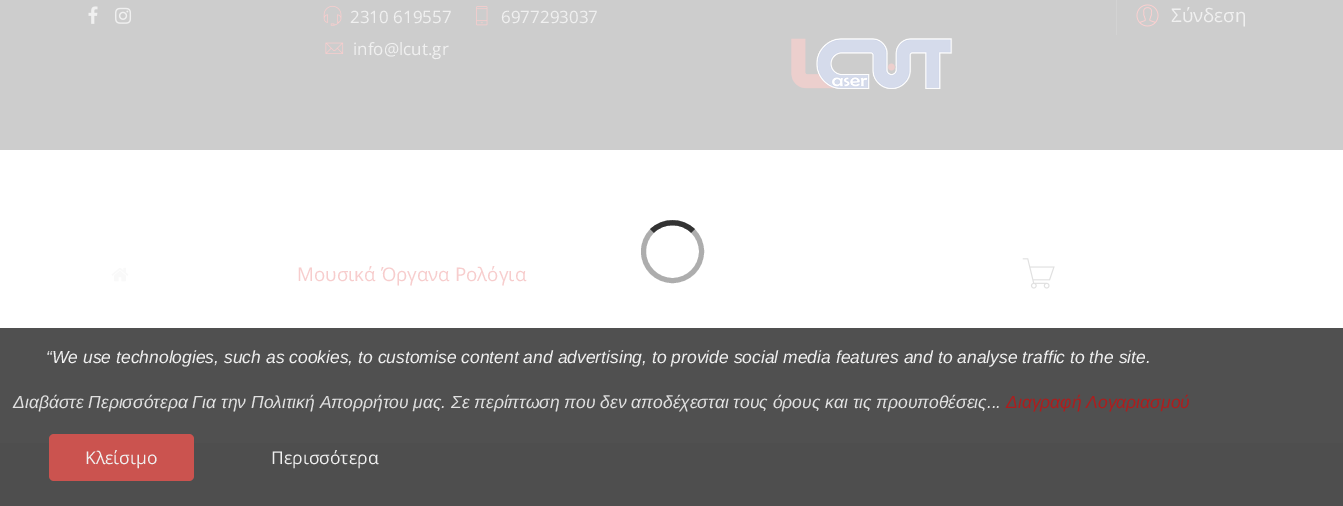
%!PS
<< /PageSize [1343 506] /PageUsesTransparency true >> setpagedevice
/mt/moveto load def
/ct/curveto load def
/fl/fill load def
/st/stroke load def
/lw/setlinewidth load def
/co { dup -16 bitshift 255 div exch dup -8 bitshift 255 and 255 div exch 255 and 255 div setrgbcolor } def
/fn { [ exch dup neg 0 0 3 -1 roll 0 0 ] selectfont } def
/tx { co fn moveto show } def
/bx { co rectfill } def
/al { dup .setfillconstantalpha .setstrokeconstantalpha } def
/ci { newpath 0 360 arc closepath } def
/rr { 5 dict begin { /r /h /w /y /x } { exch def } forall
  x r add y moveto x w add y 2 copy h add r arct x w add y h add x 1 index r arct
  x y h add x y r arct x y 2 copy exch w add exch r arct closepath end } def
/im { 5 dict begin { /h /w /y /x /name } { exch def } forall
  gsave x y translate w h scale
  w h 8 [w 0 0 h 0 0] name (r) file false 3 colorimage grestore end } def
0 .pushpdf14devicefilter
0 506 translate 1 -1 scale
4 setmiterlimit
0 0 1343 506 16#FFFFFF bx
0 328 1343 115 16#505050 bx
0 0 1343 150 16#CDCDCD bx
(media/1.raw) 88 6 10 18 im
(media/2.raw) 115 7 17 17 im
(media/3.raw) 323 5 19 21 im
(media/4.raw) 476 6 12 20 im
(media/5.raw) 325 42 19 12 im
1116 0 1 35 16#D3D3D3 bx
(media/6.raw) 1136 4 23 23 im
(media/7.raw) 791 38 162 51 im
(media/8.raw) 111 267 18 15 im
(media/9.raw) 464 387 6 4 im
(media/10.raw) 1022 258 33 31 im
0.4 al
16#333333 co
5 lw
672.5 251.5 29 ci st
1 al
652 231 mt 663 220 682 220 693 231 ct st
0 443 1343 63 16#4E4E4E bx
16#CB534F co
49 434 145 47 5 rr fl
(2310 619557) 350 23 /OpenSans-Regular 17 16#F0F0F0 tx
(6977293037) 501 23 /OpenSans-Regular 17 16#F0F0F0 tx
(info@lcut.gr) 353 55 /OpenSans-Regular 17 16#F0F0F0 tx
(Σύνδεση) 1171 22 /OpenSans-Regular 18.75 16#F0F0F0 tx
(Μουσικά Όργανα Ρολόγια) 297 281 /OpenSans-Regular 18.75 16#F7CDCD tx
(“We use technologies, such as cookies, to customise content and advertising, to provide social media features and to analyse traffic to the site.) 46 363 /LiberationSans-Italic 17.5 16#F0F0F0 tx
(Διαβάστε Περισσότερα Για την Πολιτική Απορρήτου μας. Σε περίπτωση που δεν αποδέχεσται τους όρους και τις προυποθέσεις...) 13 408 /LiberationSans-Italic 17.5 16#E0E0E0 tx
(Διαγραφή Λογαριασμού) 1006 408 /LiberationSans-Italic 17.5 16#AD1D1D tx
(Κλείσιμο) 85 464 /OpenSans-Regular 17.5 16#F0F0F0 tx
(Περισσότερα) 271 464 /OpenSans-Regular 17.5 16#F0F0F0 tx
.poppdf14devicefilter showpage
